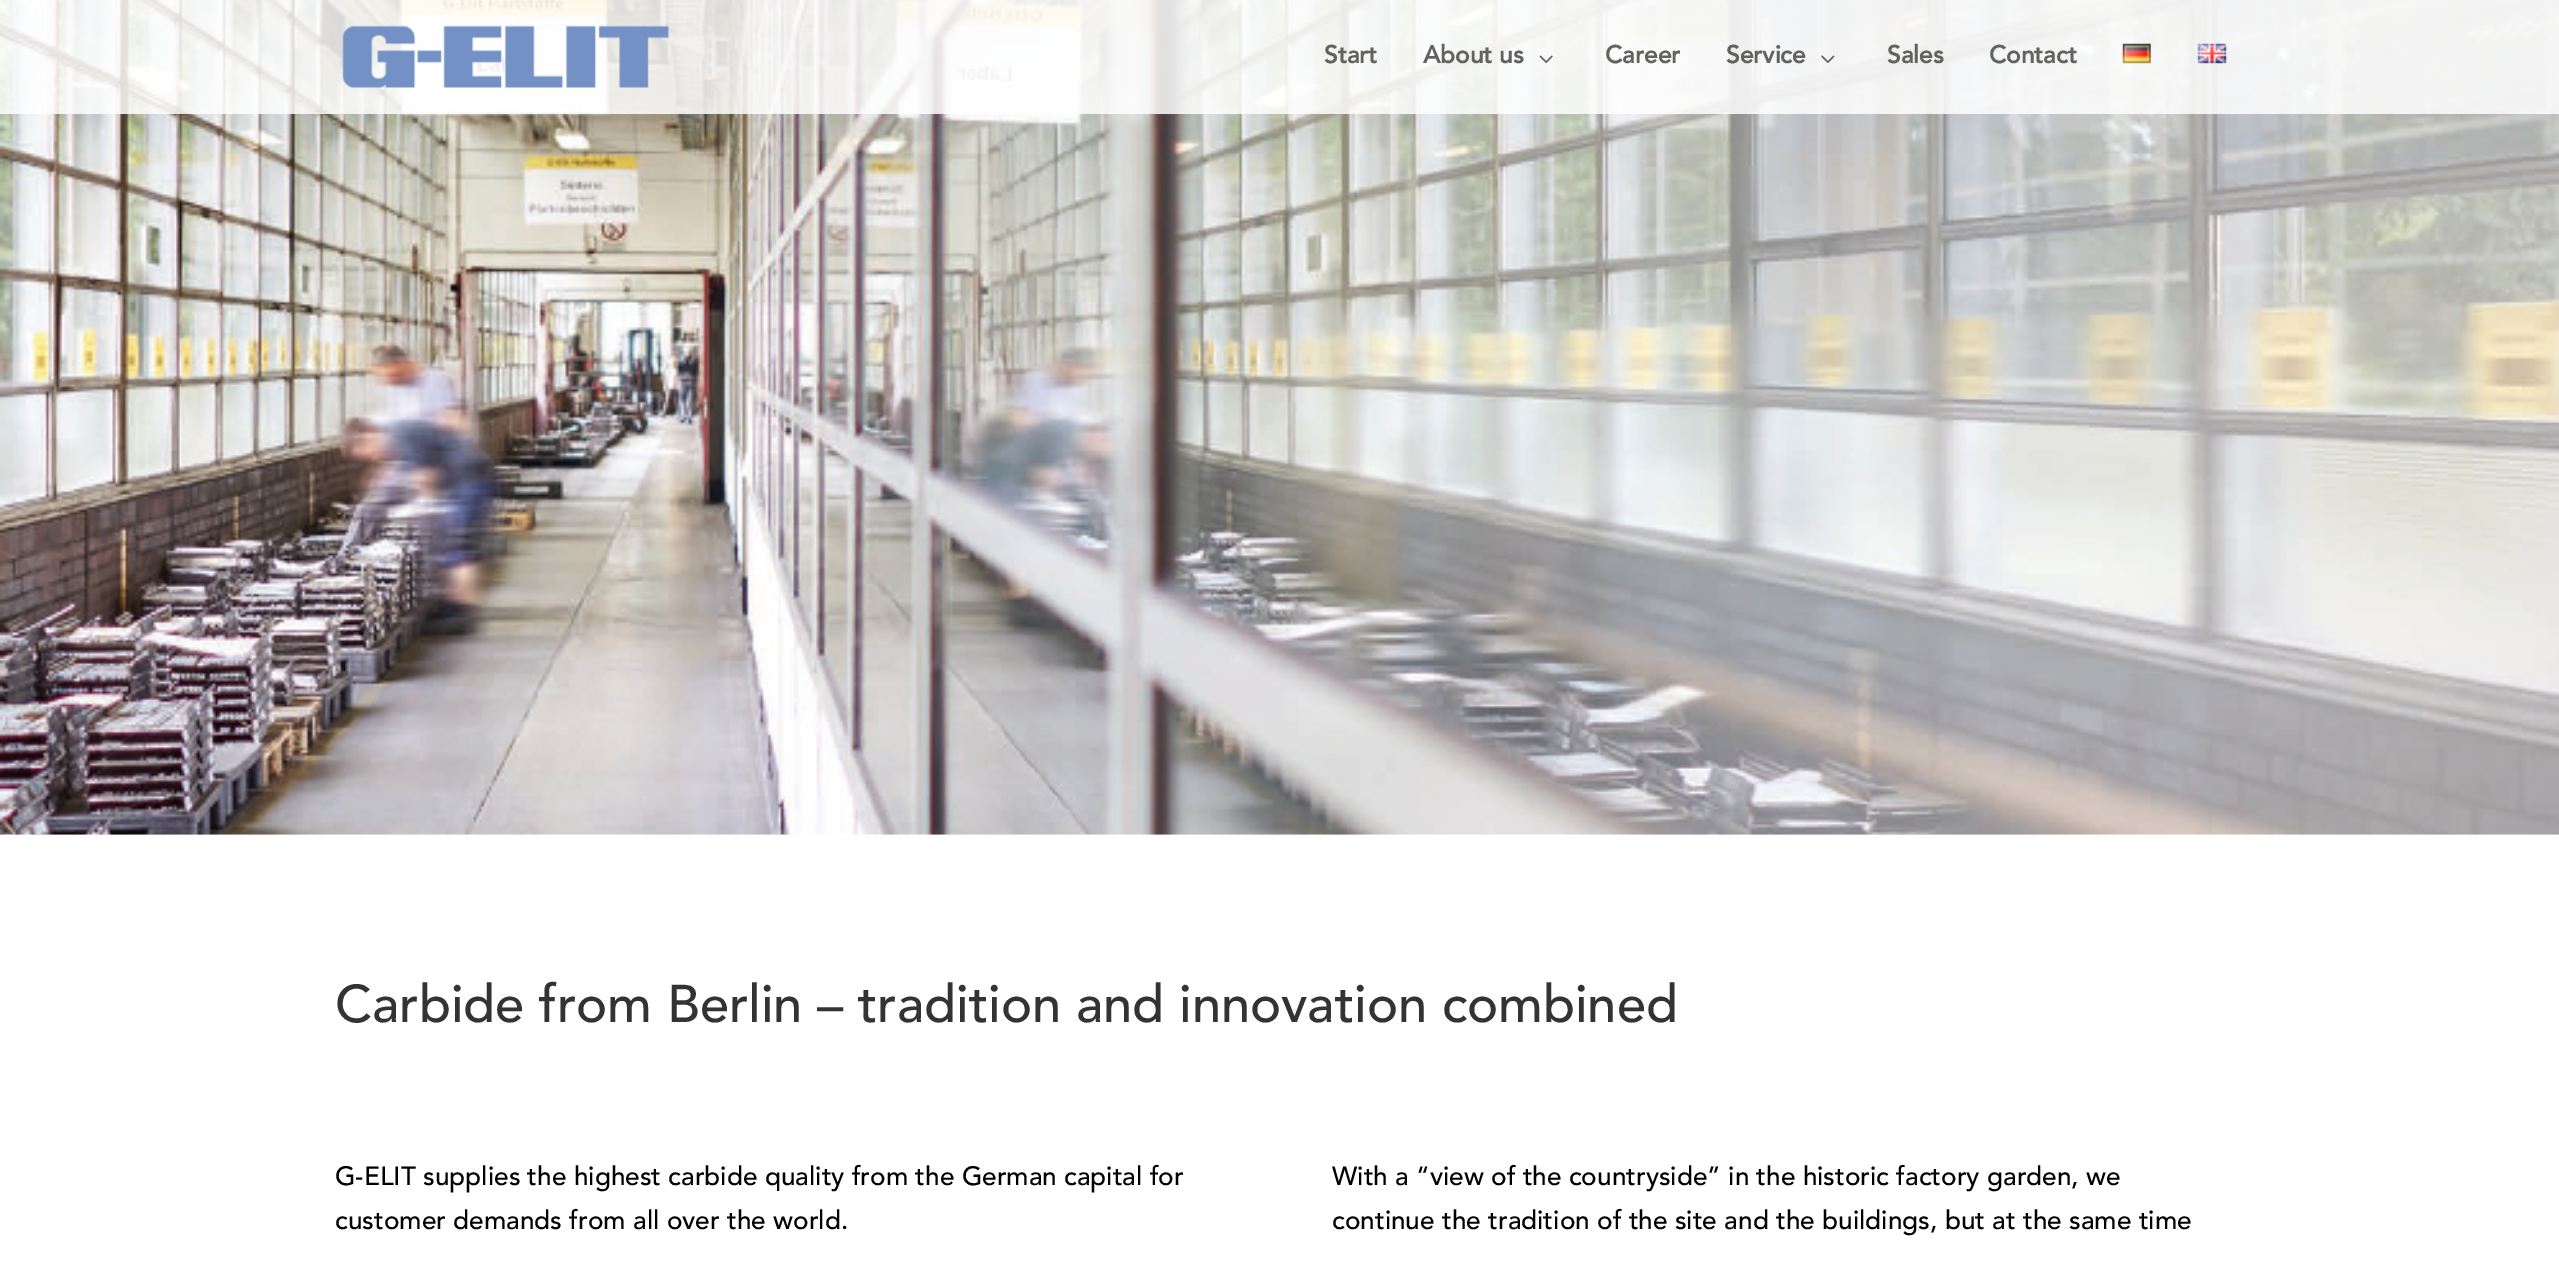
%!PS
<< /PageSize [2559 1266] /PageUsesTransparency true >> setpagedevice
/co { dup -16 bitshift 255 div exch dup -8 bitshift 255 and 255 div exch 255 and 255 div setrgbcolor } def
/fn { [ exch dup neg 0 0 3 -1 roll 0 0 ] selectfont } def
/tx { co fn moveto show } def
/bx { co rectfill } def
/al { dup .setfillconstantalpha .setstrokeconstantalpha } def
/im { 5 dict begin { /h /w /y /x /name } { exch def } forall
  gsave x y translate w h scale
  w h 8 [w 0 0 h 0 0] name (r) file false 3 colorimage grestore end } def
0 .pushpdf14devicefilter
0 1266 translate 1 -1 scale
4 setmiterlimit
0 0 2559 1266 16#FFFFFF bx
(media/6.raw) 0 0 2559 835 im
0.84 al
0 0 2559 114 16#FFFFFF bx
1 al
(media/1.raw) 342 25 328 63 im
(media/2.raw) 1539 55 14 8 im
(media/3.raw) 1821 55 14 8 im
(media/4.raw) 2122 43 29 21 im
(media/5.raw) 2197 43 30 21 im
(Start) 1324 63 /Avenir-Bold 24.5 16#626261 tx
(About us) 1423 63 /Avenir-Bold 24.5 16#626261 tx
(Career) 1605 63 /Avenir-Bold 24.5 16#626261 tx
(Service) 1726 63 /Avenir-Bold 24.5 16#626261 tx
(Sales) 1887 63 /Avenir-Bold 24.5 16#626261 tx
(Contact) 1989 63 /Avenir-Bold 24.5 16#626261 tx
(Carbide from Berlin – tradition and innovation combined) 335 1022 /Avenir-Regular 52.5 16#333333 tx
(G-ELIT supplies the highest carbide quality from the German capital for) 335 1185 /Avenir-Regular 26.25 16#000000 tx
(customer demands from all over the world.) 335 1229 /Avenir-Regular 26.25 16#000000 tx
(With a “view of the countryside” in the historic factory garden, we) 1332 1185 /Avenir-Regular 26.25 16#000000 tx
(continue the tradition of the site and the buildings, but at the same time) 1332 1229 /Avenir-Regular 26.25 16#000000 tx
.poppdf14devicefilter showpage
